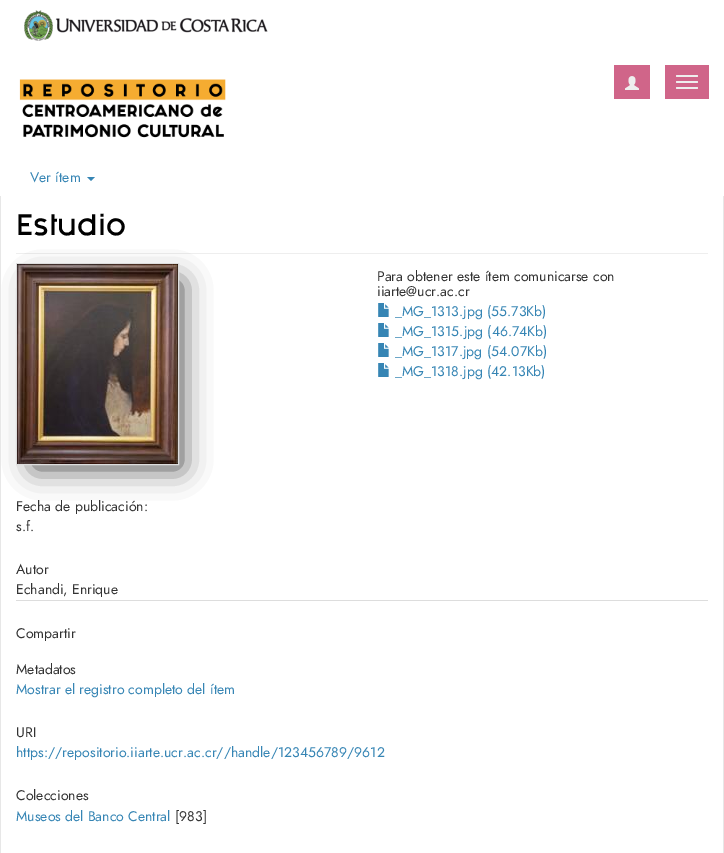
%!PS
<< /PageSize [724 853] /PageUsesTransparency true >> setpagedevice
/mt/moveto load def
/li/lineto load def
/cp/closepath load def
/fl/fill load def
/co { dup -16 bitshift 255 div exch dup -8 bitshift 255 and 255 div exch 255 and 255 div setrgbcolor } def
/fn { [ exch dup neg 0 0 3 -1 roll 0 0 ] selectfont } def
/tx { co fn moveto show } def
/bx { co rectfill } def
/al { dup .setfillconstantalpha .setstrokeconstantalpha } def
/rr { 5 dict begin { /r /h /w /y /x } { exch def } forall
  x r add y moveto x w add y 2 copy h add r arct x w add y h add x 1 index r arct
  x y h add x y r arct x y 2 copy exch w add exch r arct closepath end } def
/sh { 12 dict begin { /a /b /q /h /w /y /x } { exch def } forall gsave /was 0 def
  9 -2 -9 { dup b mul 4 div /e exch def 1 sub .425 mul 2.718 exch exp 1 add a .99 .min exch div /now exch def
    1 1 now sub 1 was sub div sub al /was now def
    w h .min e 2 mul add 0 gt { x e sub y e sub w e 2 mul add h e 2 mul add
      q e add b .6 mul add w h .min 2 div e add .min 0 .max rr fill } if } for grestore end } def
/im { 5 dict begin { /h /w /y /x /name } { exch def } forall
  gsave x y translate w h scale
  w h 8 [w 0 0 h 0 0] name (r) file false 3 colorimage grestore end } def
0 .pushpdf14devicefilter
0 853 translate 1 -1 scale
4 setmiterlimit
0 0 724 853 16#FFFFFF bx
(media/1.raw) 24 10 244 31 im
(media/2.raw) 19 79 207 59 im
614 65 36 34 16#D06589 bx
(media/3.raw) 625 76 14 14 im
665 65 44 34 16#D06589 bx
16#EEEEEE co
676 75 22 2 1 rr fl
676 81 22 2 1 rr fl
676 87 22 2 1 rr fl
16#3685B4 co
87 177 mt 95 177 li 91 181 li cp fl
723 196 1 657 16#E7E7E7 bx
0 196 1 657 16#E7E7E7 bx
16 253 692 1 16#EEEEEE bx
16#000000 co
34 282 147 186 0 14.5 .75 sh
16#DDDDDD co
16.5 263.5 162 201 rectstroke
(media/4.raw) 17 264 161 200 im
(media/5.raw) 378 303 11 14 im
(media/5.raw) 378 323 11 14 im
(media/5.raw) 378 343 11 14 im
(media/5.raw) 378 363 11 14 im
16 600 692 1 16#DDDDDD bx
(Ver ítem) 30 182 /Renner-Regular 14 16#3685B4 tx
(Estudio) 16 235 /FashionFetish-Bold 25 16#000000 tx
(Para obtener este ítem comunicarse con) 377 281 /Renner-Regular 14 16#333333 tx
(iiarte@ucr.ac.cr) 377 296 /Renner-Regular 14 16#333333 tx
(_MG_1313.jpg \(55.73Kb\)) 395 316 /Renner-Regular 14 16#3685B4 tx
(_MG_1315.jpg \(46.74Kb\)) 395 336 /Renner-Regular 14 16#3685B4 tx
(_MG_1317.jpg \(54.07Kb\)) 395 356 /Renner-Regular 14 16#3685B4 tx
(_MG_1318.jpg \(42.13Kb\)) 395 376 /Renner-Regular 14 16#3685B4 tx
(Fecha de publicación:) 16 511 /Renner-Regular 14 16#333333 tx
(s.f.) 16 531 /Renner-Regular 14 16#333333 tx
(Autor) 16 574 /Renner-Regular 14 16#333333 tx
(Echandi, Enrique) 16 594 /Renner-Regular 14 16#333333 tx
(Compartir) 16 638 /Renner-Regular 14 16#333333 tx
(Metadatos) 16 674 /Renner-Regular 14 16#333333 tx
(Mostrar el registro completo del ítem) 16 694 /Renner-Regular 14 16#3685B4 tx
(URI) 16 737 /Renner-Regular 14 16#333333 tx
(https://repositorio.iiarte.ucr.ac.cr//handle/123456789/9612) 16 757 /Renner-Regular 14 16#3685B4 tx
(Colecciones) 16 800 /Renner-Regular 14 16#333333 tx
(Museos del Banco Central) 16 821 /Renner-Regular 14 16#3685B4 tx
([983]) 175 821 /Renner-Regular 14 16#333333 tx
.poppdf14devicefilter showpage
